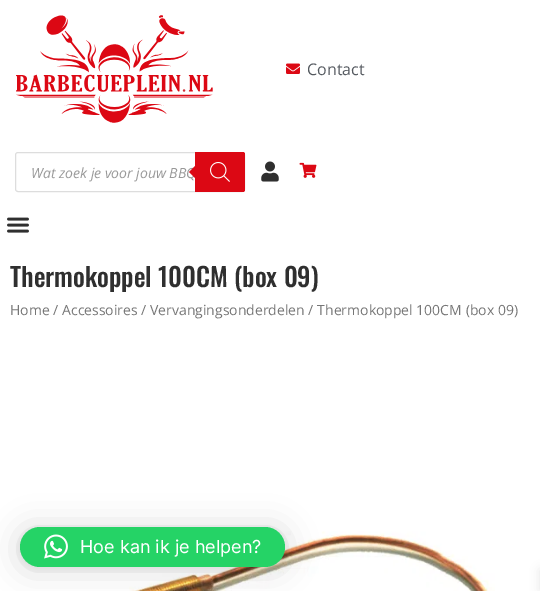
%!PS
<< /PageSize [540 591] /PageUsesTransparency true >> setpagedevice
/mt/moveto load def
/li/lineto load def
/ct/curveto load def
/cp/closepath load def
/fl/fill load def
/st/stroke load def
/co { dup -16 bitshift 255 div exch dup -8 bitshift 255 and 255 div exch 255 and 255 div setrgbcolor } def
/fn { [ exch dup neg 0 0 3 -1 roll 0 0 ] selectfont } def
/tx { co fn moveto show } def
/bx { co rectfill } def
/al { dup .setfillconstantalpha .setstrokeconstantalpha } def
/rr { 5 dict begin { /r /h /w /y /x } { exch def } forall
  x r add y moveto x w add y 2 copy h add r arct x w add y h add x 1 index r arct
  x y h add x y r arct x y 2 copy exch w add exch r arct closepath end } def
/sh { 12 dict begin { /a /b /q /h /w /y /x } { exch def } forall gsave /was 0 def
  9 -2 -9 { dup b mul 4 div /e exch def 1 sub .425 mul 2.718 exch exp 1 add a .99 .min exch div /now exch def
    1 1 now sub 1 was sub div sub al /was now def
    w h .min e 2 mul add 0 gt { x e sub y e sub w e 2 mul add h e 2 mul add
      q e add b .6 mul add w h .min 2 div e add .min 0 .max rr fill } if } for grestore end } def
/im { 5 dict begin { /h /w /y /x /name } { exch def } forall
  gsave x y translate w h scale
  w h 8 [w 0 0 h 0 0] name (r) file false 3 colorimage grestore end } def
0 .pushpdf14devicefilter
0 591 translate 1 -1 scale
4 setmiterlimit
0 0 540 591 16#FFFFFF bx
(media/1.raw) 16 15 197 108 im
(media/2.raw) 286 63 14 11 im
16#DDDDDD co
15.5 152.5 229 39 2.5 rr st
(media/4.raw) 261 161 18 21 im
(media/5.raw) 299 162 18 16 im
(media/6.raw) 7 217 22 16 im
(media/7.raw) 129 531 366 60 im
16#000000 co
20 529 265 40 20 16 .16 sh
20 528 265 40 20 3 .06 sh
16#25D366 co
20 527 265 40 20 rr fl
(media/8.raw) 44 534 24 25 im
16#000000 co
540 570 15 20 0 5 .1 sh
(Contact) 307 75 /OpenSans-Regular 16 16#54595F tx
(Wat zoek je voor jouw BBQ) 31 178 /OpenSans-Italic 14 16#999999 tx
16#DC0814 co
195 152 mt 243 152 li 244 152 245 153 245 154 ct 245 190 li 245 191 244 192 243 192 ct 195 192 li cp fl
197 164 mt 197 180 li 189 172 li cp fl
(media/3.raw) 210 162 20 20 im
(Thermokoppel 100CM \(box 09\)) 10 287 /Oswald-Medium 26 16#2F2F2F tx
(Home / Accessoires / Vervangingsonderdelen / Thermokoppel 100CM \(box 09\)) 10 315 /OpenSans-Regular 14 16#767676 tx
(Hoe kan ik je helpen?) 80 553 /Inter-Regular 18 16#FFFFFF tx
.poppdf14devicefilter showpage
